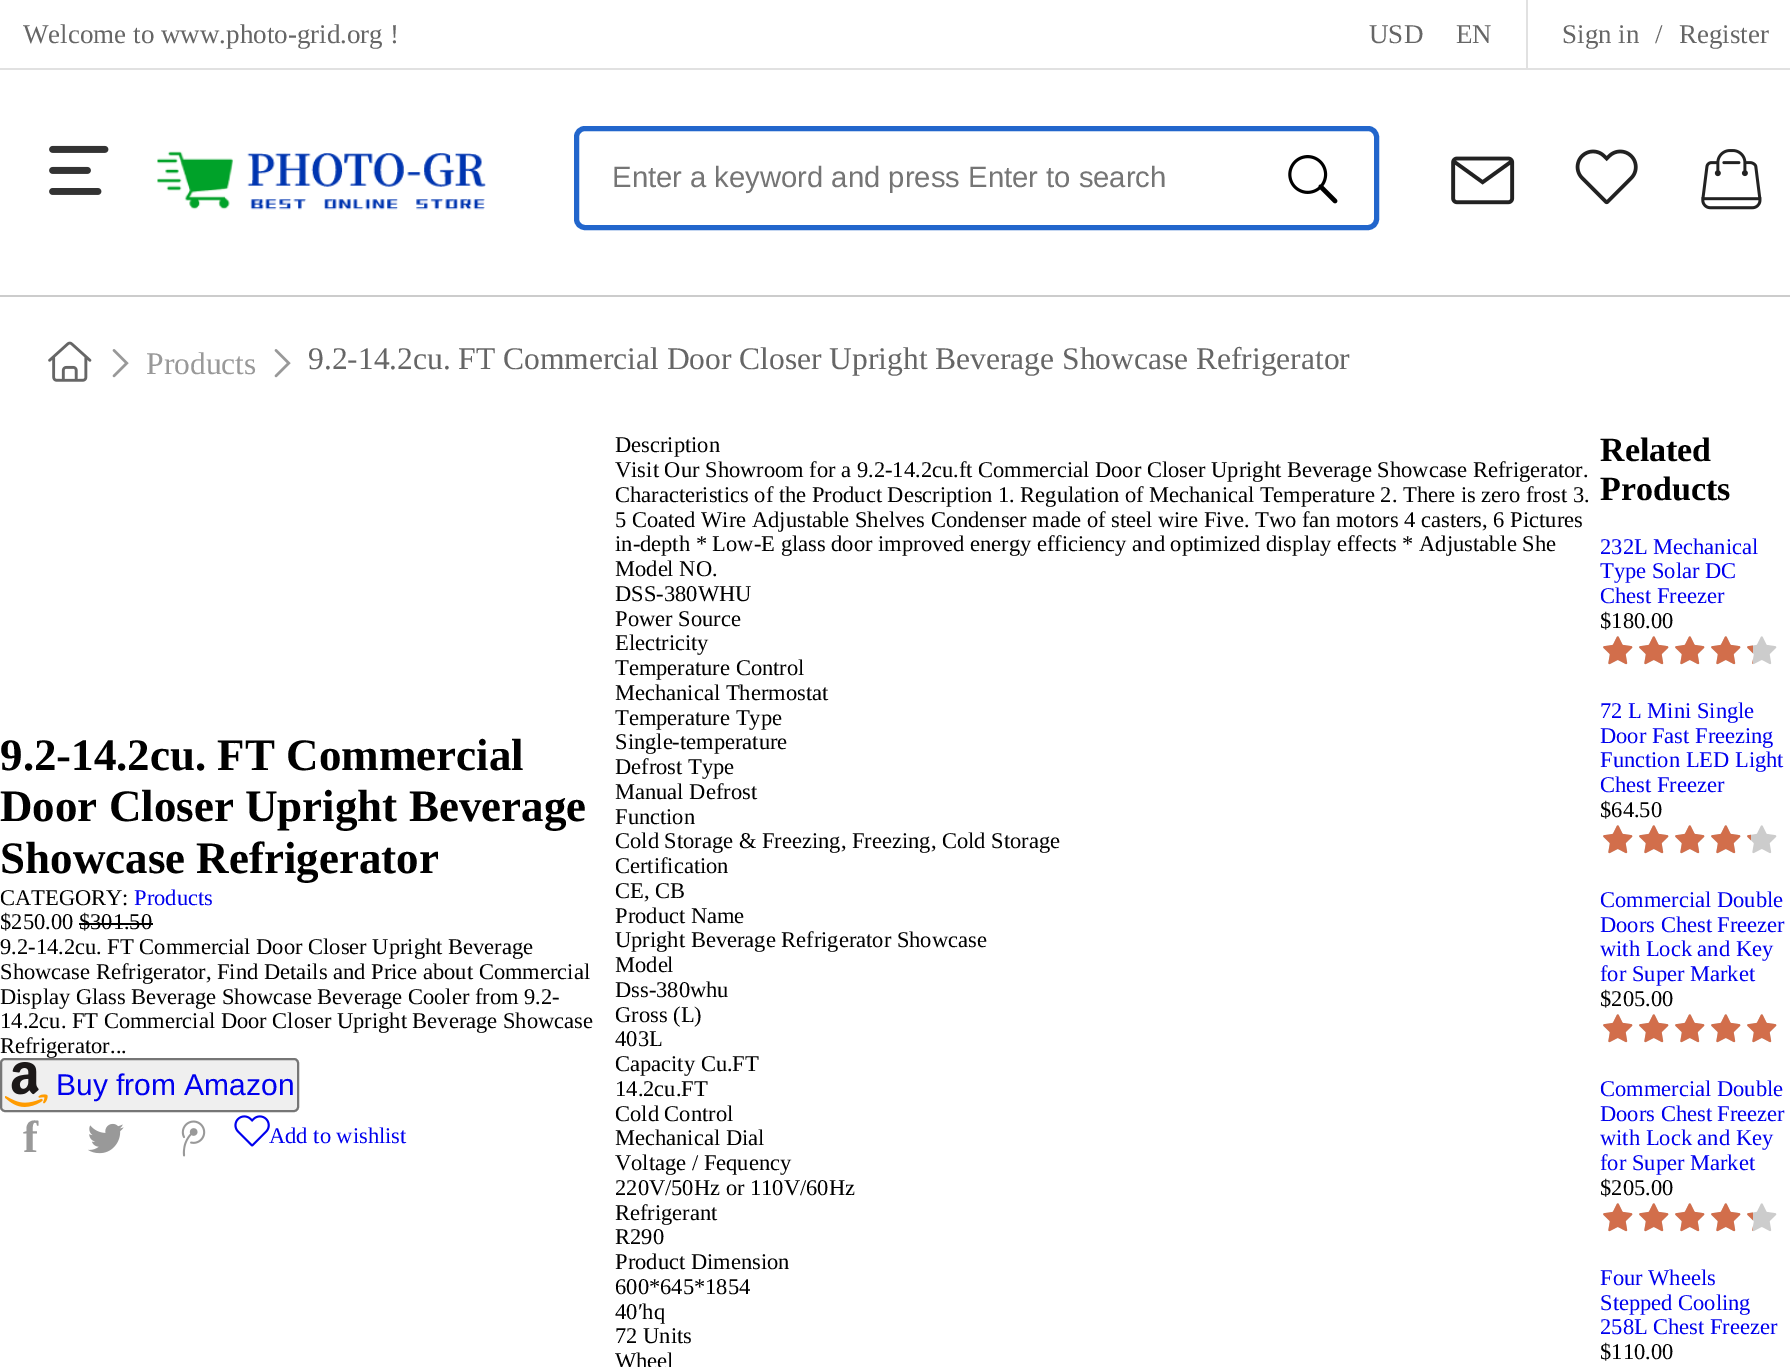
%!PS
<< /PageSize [1790 1367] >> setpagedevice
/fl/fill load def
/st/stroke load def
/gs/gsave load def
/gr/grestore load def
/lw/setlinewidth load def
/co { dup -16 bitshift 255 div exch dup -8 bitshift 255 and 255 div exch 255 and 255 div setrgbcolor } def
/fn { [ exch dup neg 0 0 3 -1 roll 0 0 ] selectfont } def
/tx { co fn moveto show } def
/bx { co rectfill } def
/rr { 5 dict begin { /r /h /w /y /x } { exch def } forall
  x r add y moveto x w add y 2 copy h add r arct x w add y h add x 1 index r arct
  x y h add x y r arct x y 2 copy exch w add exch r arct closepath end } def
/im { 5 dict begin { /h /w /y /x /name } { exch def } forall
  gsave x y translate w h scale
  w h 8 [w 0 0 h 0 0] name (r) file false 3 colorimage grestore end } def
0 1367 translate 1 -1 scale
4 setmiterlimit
0 0 1790 1367 16#FFFFFF bx
0 68 1790 2 16#E1E1E1 bx
1526 0 2 68 16#E1E1E1 bx
(media/1.raw) 49 145 60 50 im
(media/2.raw) 157 151 329 59 im
16#2266CC co
5 lw
576.5 128.5 800 99 8.5 rr st
(media/3.raw) 1288 155 50 49 im
(media/4.raw) 1451 156 64 49 im
(media/5.raw) 1575 149 63 56 im
(media/6.raw) 1701 149 61 61 im
0 295 1790 2 16#CCCCCC bx
(media/7.raw) 48 341 44 41 im
(media/8.raw) 112 349 17 29 im
(media/8.raw) 274 349 17 29 im
79 923 74 2 16#000000 bx
16#EFEFEF co
1 1059 297 52 4 rr gs fl gr
16#767676 co
2 lw
st
(media/9.raw) 5 1062 43 45 im
(media/10.raw) 88 1123 36 31 im
(media/11.raw) 181 1120 25 37 im
(media/12.raw) 234 1115 36 32 im
(media/13.raw) 1603 636 174 29 im
(media/14.raw) 1603 636 150 29 im
(media/13.raw) 1603 825 174 29 im
(media/15.raw) 1603 825 148 29 im
(media/13.raw) 1603 1014 174 29 im
(media/16.raw) 1603 1014 174 29 im
(media/13.raw) 1603 1203 174 29 im
(media/14.raw) 1603 1203 150 29 im
(Welcome to www.photo-grid.org !) 23 43 /LiberationSerif-Regular 27 16#666666 tx
(USD) 1369 43 /LiberationSerif-Regular 27 16#666666 tx
(EN) 1456 43 /LiberationSerif-Regular 27 16#666666 tx
(Sign in) 1562 43 /LiberationSerif-Regular 27 16#666666 tx
(/) 1655 43 /LiberationSerif-Regular 27 16#666666 tx
(Register) 1679 43 /LiberationSerif-Regular 27 16#666666 tx
(Enter a keyword and press Enter to search) 612 187 /LiberationSans-Regular 29.25 16#757575 tx
(Products) 146 374 /LiberationSerif-Regular 31.5 16#999999 tx
(9.2-14.2cu. FT Commercial Door Closer Upright Beverage Showcase Refrigerator) 308 369 /LiberationSerif-Regular 31.5 16#666666 tx
(9.2-14.2cu. FT Commercial) 0 770 /LiberationSerif-Bold 45 16#000000 tx
(Door Closer Upright Beverage) 0 821 /LiberationSerif-Bold 45 16#000000 tx
(Showcase Refrigerator) 0 873 /LiberationSerif-Bold 45 16#000000 tx
(CATEGORY:) 0 905 /LiberationSerif-Regular 22.5 16#000000 tx
(Products) 134 905 /LiberationSerif-Regular 22.5 16#0000EE tx
($250.00 $301.50) 0 929 /LiberationSerif-Regular 22.5 16#000000 tx
(9.2-14.2cu. FT Commercial Door Closer Upright Beverage) 0 954 /LiberationSerif-Regular 22.5 16#000000 tx
(Showcase Refrigerator, Find Details and Price about Commercial) 0 979 /LiberationSerif-Regular 22.5 16#000000 tx
(Display Glass Beverage Showcase Beverage Cooler from 9.2-) 0 1004 /LiberationSerif-Regular 22.5 16#000000 tx
(14.2cu. FT Commercial Door Closer Upright Beverage Showcase) 0 1028 /LiberationSerif-Regular 22.5 16#000000 tx
(Refrigerator...) 0 1053 /LiberationSerif-Regular 22.5 16#000000 tx
(Buy from Amazon) 56 1095 /LiberationSans-Regular 30 16#0000EE tx
(f) 23 1152 /LiberationSerif-Bold 45 16#999999 tx
(Add to wishlist) 269 1143 /LiberationSerif-Regular 22.5 16#0000EE tx
(Description) 615 452 /LiberationSerif-Regular 22.5 16#000000 tx
(Visit Our Showroom for a 9.2-14.2cu.ft Commercial Door Closer Upright Beverage Showcase Refrigerator.) 615 477 /LiberationSerif-Regular 22.5 16#000000 tx
(Characteristics of the Product Description 1. Regulation of Mechanical Temperature 2. There is zero frost 3.) 615 502 /LiberationSerif-Regular 22.5 16#000000 tx
(5 Coated Wire Adjustable Shelves Condenser made of steel wire Five. Two fan motors 4 casters, 6 Pictures) 615 527 /LiberationSerif-Regular 22.5 16#000000 tx
(in-depth * Low-E glass door improved energy efficiency and optimized display effects * Adjustable She) 615 551 /LiberationSerif-Regular 22.5 16#000000 tx
(Model NO.) 615 576 /LiberationSerif-Regular 22.5 16#000000 tx
(DSS-380WHU) 615 601 /LiberationSerif-Regular 22.5 16#000000 tx
(Power Source) 615 626 /LiberationSerif-Regular 22.5 16#000000 tx
(Electricity) 615 650 /LiberationSerif-Regular 22.5 16#000000 tx
(Temperature Control) 615 675 /LiberationSerif-Regular 22.5 16#000000 tx
(Mechanical Thermostat) 615 700 /LiberationSerif-Regular 22.5 16#000000 tx
(Temperature Type) 615 725 /LiberationSerif-Regular 22.5 16#000000 tx
(Single-temperature) 615 749 /LiberationSerif-Regular 22.5 16#000000 tx
(Defrost Type) 615 774 /LiberationSerif-Regular 22.5 16#000000 tx
(Manual Defrost) 615 799 /LiberationSerif-Regular 22.5 16#000000 tx
(Function) 615 824 /LiberationSerif-Regular 22.5 16#000000 tx
(Cold Storage & Freezing, Freezing, Cold Storage) 615 848 /LiberationSerif-Regular 22.5 16#000000 tx
(Certification) 615 873 /LiberationSerif-Regular 22.5 16#000000 tx
(CE, CB) 615 898 /LiberationSerif-Regular 22.5 16#000000 tx
(Product Name) 615 923 /LiberationSerif-Regular 22.5 16#000000 tx
(Upright Beverage Refrigerator Showcase) 615 947 /LiberationSerif-Regular 22.5 16#000000 tx
(Model) 615 972 /LiberationSerif-Regular 22.5 16#000000 tx
(Dss-380whu) 615 997 /LiberationSerif-Regular 22.5 16#000000 tx
(Gross \(L\)) 615 1022 /LiberationSerif-Regular 22.5 16#000000 tx
(403L) 615 1046 /LiberationSerif-Regular 22.5 16#000000 tx
(Capacity Cu.FT) 615 1071 /LiberationSerif-Regular 22.5 16#000000 tx
(14.2cu.FT) 615 1096 /LiberationSerif-Regular 22.5 16#000000 tx
(Cold Control) 615 1121 /LiberationSerif-Regular 22.5 16#000000 tx
(Mechanical Dial) 615 1145 /LiberationSerif-Regular 22.5 16#000000 tx
(Voltage / Fequency) 615 1170 /LiberationSerif-Regular 22.5 16#000000 tx
(220V/50Hz or 110V/60Hz) 615 1195 /LiberationSerif-Regular 22.5 16#000000 tx
(Refrigerant) 615 1220 /LiberationSerif-Regular 22.5 16#000000 tx
(R290) 615 1244 /LiberationSerif-Regular 22.5 16#000000 tx
(Product Dimension) 615 1269 /LiberationSerif-Regular 22.5 16#000000 tx
(600*645*1854) 615 1294 /LiberationSerif-Regular 22.5 16#000000 tx
(40′hq) 615 1319 /LiberationSerif-Regular 22.5 16#000000 tx
(72 Units) 615 1343 /LiberationSerif-Regular 22.5 16#000000 tx
(Wheel) 615 1368 /LiberationSerif-Regular 22.5 16#000000 tx
(Related) 1600 461 /LiberationSerif-Bold 34 16#000000 tx
(Products) 1600 500 /LiberationSerif-Bold 34 16#000000 tx
(232L Mechanical) 1600 554 /LiberationSerif-Regular 22.5 16#0000EE tx
(Type Solar DC) 1600 578 /LiberationSerif-Regular 22.5 16#0000EE tx
(Chest Freezer) 1600 603 /LiberationSerif-Regular 22.5 16#0000EE tx
($180.00) 1600 628 /LiberationSerif-Regular 22.5 16#000000 tx
(72 L Mini Single) 1600 718 /LiberationSerif-Regular 22.5 16#0000EE tx
(Door Fast Freezing) 1600 743 /LiberationSerif-Regular 22.5 16#0000EE tx
(Function LED Light) 1600 767 /LiberationSerif-Regular 22.5 16#0000EE tx
(Chest Freezer) 1600 792 /LiberationSerif-Regular 22.5 16#0000EE tx
($64.50) 1600 817 /LiberationSerif-Regular 22.5 16#000000 tx
(Commercial Double) 1600 907 /LiberationSerif-Regular 22.5 16#0000EE tx
(Doors Chest Freezer) 1600 932 /LiberationSerif-Regular 22.5 16#0000EE tx
(with Lock and Key) 1600 956 /LiberationSerif-Regular 22.5 16#0000EE tx
(for Super Market) 1600 981 /LiberationSerif-Regular 22.5 16#0000EE tx
($205.00) 1600 1006 /LiberationSerif-Regular 22.5 16#000000 tx
(Commercial Double) 1600 1096 /LiberationSerif-Regular 22.5 16#0000EE tx
(Doors Chest Freezer) 1600 1121 /LiberationSerif-Regular 22.5 16#0000EE tx
(with Lock and Key) 1600 1145 /LiberationSerif-Regular 22.5 16#0000EE tx
(for Super Market) 1600 1170 /LiberationSerif-Regular 22.5 16#0000EE tx
($205.00) 1600 1195 /LiberationSerif-Regular 22.5 16#000000 tx
(Four Wheels) 1600 1285 /LiberationSerif-Regular 22.5 16#0000EE tx
(Stepped Cooling) 1600 1310 /LiberationSerif-Regular 22.5 16#0000EE tx
(258L Chest Freezer) 1600 1334 /LiberationSerif-Regular 22.5 16#0000EE tx
($110.00) 1600 1359 /LiberationSerif-Regular 22.5 16#000000 tx
showpage
